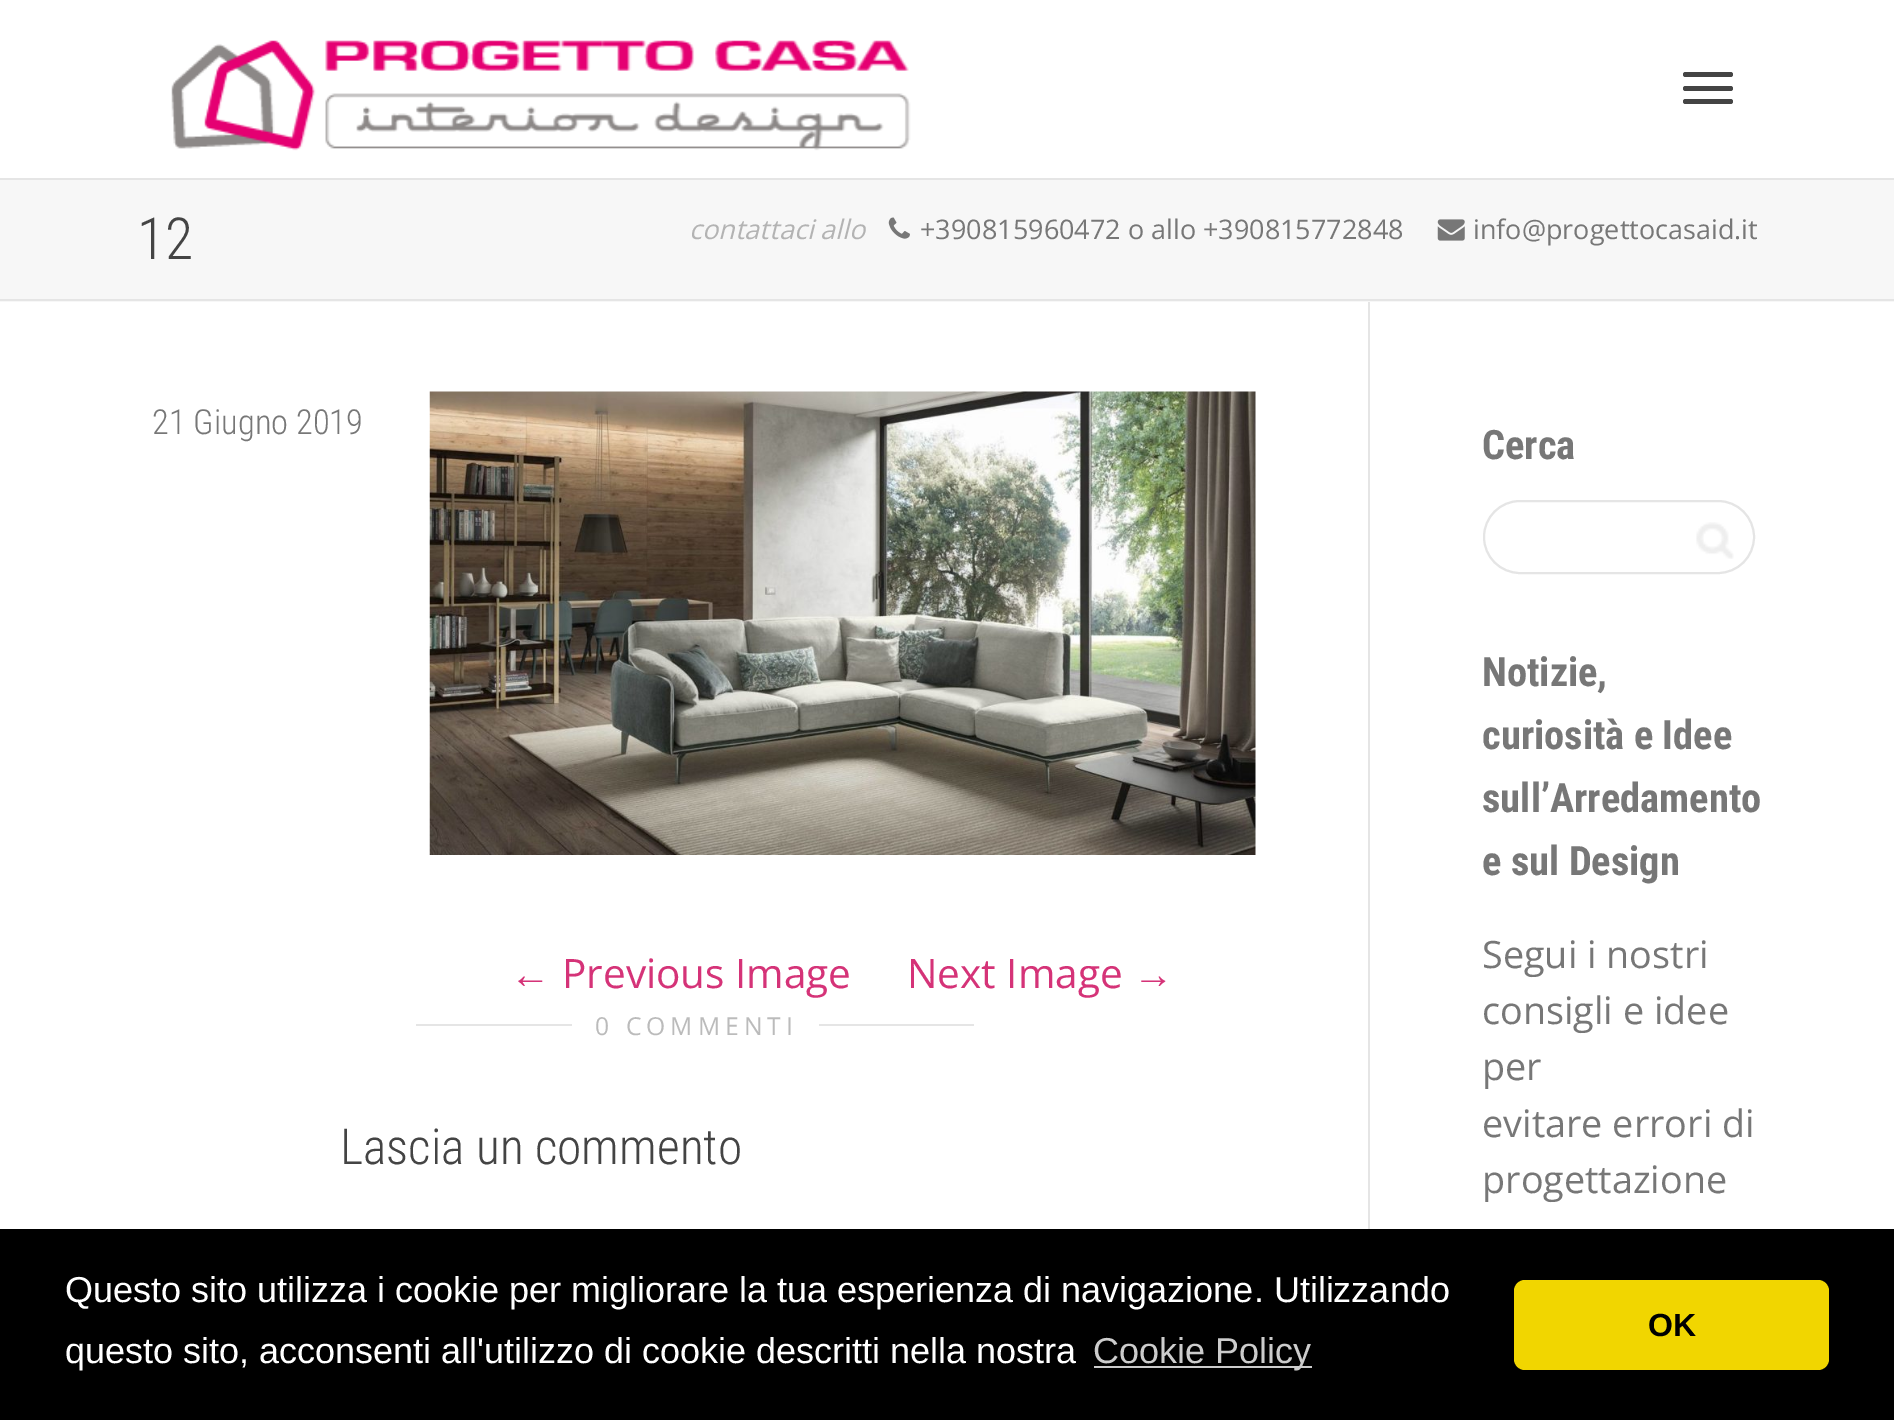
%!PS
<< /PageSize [1894 1420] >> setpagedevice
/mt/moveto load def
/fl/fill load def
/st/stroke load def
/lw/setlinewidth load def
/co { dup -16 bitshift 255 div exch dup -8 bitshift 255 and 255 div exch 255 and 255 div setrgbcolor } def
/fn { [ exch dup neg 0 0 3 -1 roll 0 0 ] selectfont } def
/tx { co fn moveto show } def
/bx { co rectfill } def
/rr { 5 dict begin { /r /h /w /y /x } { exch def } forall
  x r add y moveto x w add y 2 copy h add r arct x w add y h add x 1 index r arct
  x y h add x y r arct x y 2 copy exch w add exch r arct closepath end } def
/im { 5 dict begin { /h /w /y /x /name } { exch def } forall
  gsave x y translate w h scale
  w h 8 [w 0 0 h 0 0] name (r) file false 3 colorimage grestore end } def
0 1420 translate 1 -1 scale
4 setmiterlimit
0 0 1894 1420 16#FFFFFF bx
0 178 1894 2 16#E5E5E5 bx
(media/1.raw) 171 40 740 111 im
16#444444 co
1683 72 50 5 2.5 rr fl
1683 86 50 5 2.5 rr fl
1683 99 50 5 2.5 rr fl
0 180 1894 122 16#F7F7F7 bx
0 299 1894 2 16#E5E5E5 bx
(media/2.raw) 888 217 22 22 im
(media/3.raw) 1437 219 28 22 im
1368 302 2 927 16#E5E5E5 bx
(media/4.raw) 429 391 827 464 im
416 1024 558 2 16#E5E5E5 bx
16#FFFFFF co
572 1004 247 42 5 rr fl
16#E5E5E5 co
2 lw
1484 501 270 72 36 rr st
(media/5.raw) 1696 522 38 37 im
0 1229 1894 191 16#000000 bx
1094 1366 218 2 16#CCCCCC bx
16#F1D600 co
1514 1280 315 90 11 rr fl
(12) 137 259 /RobotoCondensed-Light 58 16#444444 tx
(contattaci allo) 689 239 /OpenSans-Italic 27 16#B3B3B3 tx
(+390815960472 o allo +390815772848) 920 239 /OpenSans-Regular 27 16#777777 tx
(info@progettocasaid.it) 1473 239 /OpenSans-Regular 27 16#777777 tx
(21 Giugno 2019) 152 434 /RobotoCondensed-Light 34.5 16#777777 tx
(←) 510 988 /LiberationSerif-Regular 40.5 16#D53378 tx
(Previous Image) 562 988 /OpenSans-Regular 40.5 16#D53378 tx
(Next Image) 907 988 /OpenSans-Regular 40.5 16#D53378 tx
(→) 1133 988 /LiberationSerif-Regular 40.5 16#D53378 tx
/OpenSans-Regular 24.75 fn
16#BBBBBB co
595 1035 mt 5 0 (0 COMMENTI) ashow
(Lascia un commento) 340 1164 /RobotoCondensed-Light 49.5 16#444444 tx
(Cerca) 1482 459 /RobotoCondensed-Bold 40.5 16#777777 tx
(Notizie,) 1482 686 /RobotoCondensed-Bold 40.5 16#777777 tx
(curiosità e Idee) 1482 749 /RobotoCondensed-Bold 40.5 16#777777 tx
(sull’Arredamento) 1482 812 /RobotoCondensed-Bold 40.5 16#777777 tx
(e sul Design) 1482 875 /RobotoCondensed-Bold 40.5 16#777777 tx
(Segui i nostri) 1482 968 /OpenSans-Regular 37.75 16#777777 tx
(consigli e idee) 1482 1024 /OpenSans-Regular 37.75 16#777777 tx
(per) 1482 1080 /OpenSans-Regular 37.75 16#777777 tx
(evitare errori di) 1482 1137 /OpenSans-Regular 37.75 16#777777 tx
(progettazione) 1482 1193 /OpenSans-Regular 37.75 16#777777 tx
(Questo sito utilizza i cookie per migliorare la tua esperienza di navigazione. Utilizzando) 65 1302 /LiberationSans-Regular 36 16#FFFFFF tx
(questo sito, acconsenti all'utilizzo di cookie descritti nella nostra) 65 1363 /LiberationSans-Regular 36 16#FFFFFF tx
(Cookie Policy) 1093 1363 /LiberationSans-Regular 36 16#CCCCCC tx
(OK) 1648 1336 /LiberationSans-Bold 32 16#000000 tx
showpage
